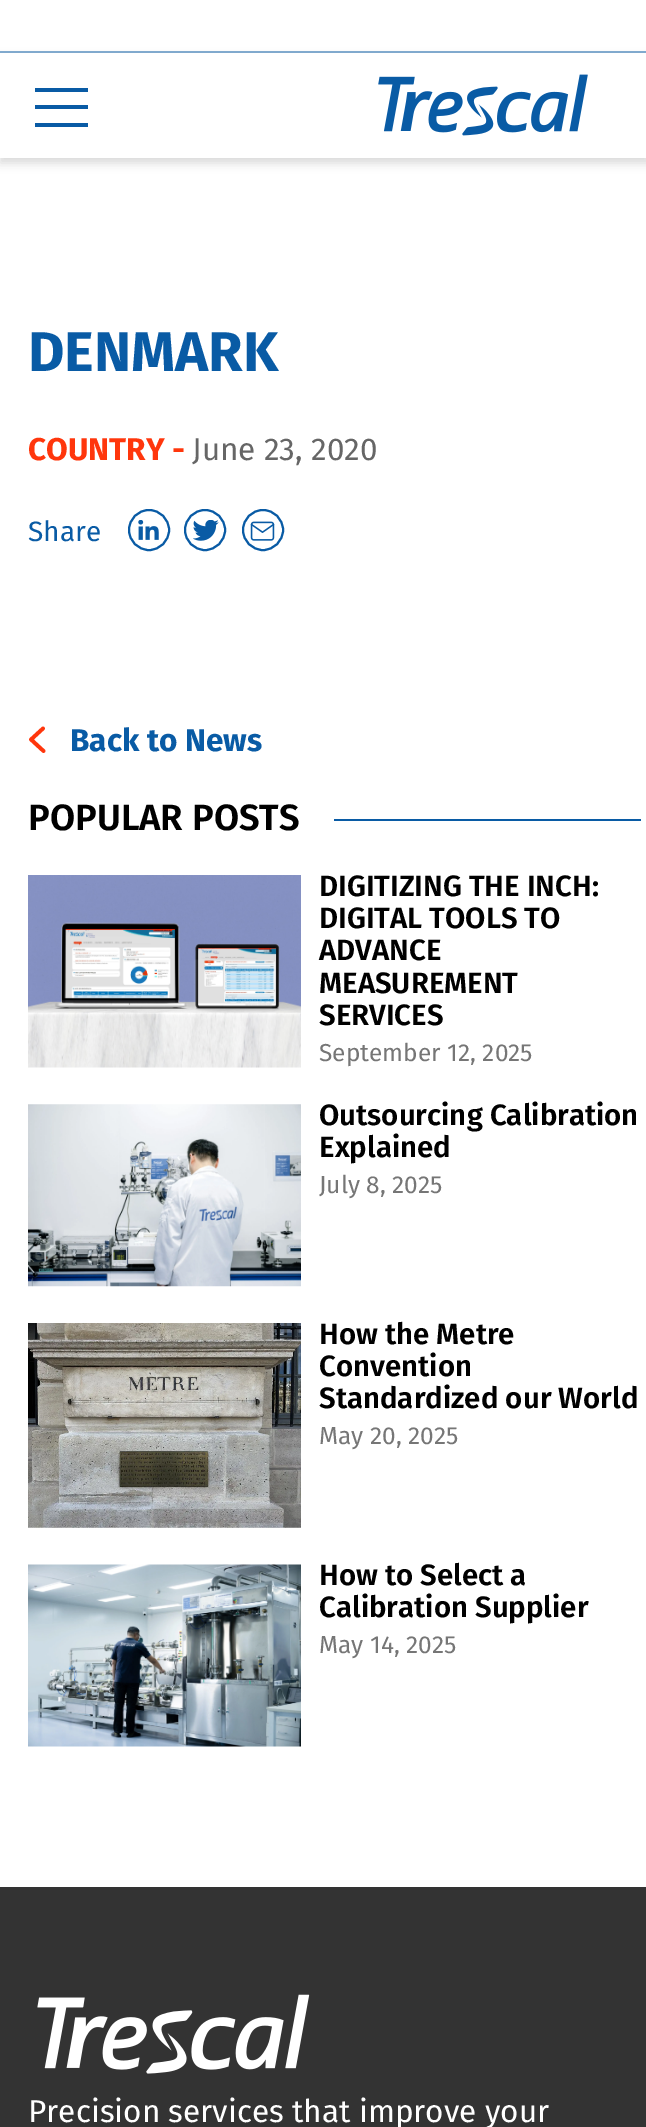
%!PS
<< /PageSize [646 2127] /PageUsesTransparency true >> setpagedevice
/mt/moveto load def
/li/lineto load def
/st/stroke load def
/lw/setlinewidth load def
/co { dup -16 bitshift 255 div exch dup -8 bitshift 255 and 255 div exch 255 and 255 div setrgbcolor } def
/fn { [ exch dup neg 0 0 3 -1 roll 0 0 ] selectfont } def
/tx { co fn moveto show } def
/bx { co rectfill } def
/al { dup .setfillconstantalpha .setstrokeconstantalpha } def
/ci { newpath 0 360 arc closepath } def
/rr { 5 dict begin { /r /h /w /y /x } { exch def } forall
  x r add y moveto x w add y 2 copy h add r arct x w add y h add x 1 index r arct
  x y h add x y r arct x y 2 copy exch w add exch r arct closepath end } def
/sh { 12 dict begin { /a /b /q /h /w /y /x } { exch def } forall gsave /was 0 def
  9 -2 -9 { dup b mul 4 div /e exch def 1 sub .425 mul 2.718 exch exp 1 add a .99 .min exch div /now exch def
    1 1 now sub 1 was sub div sub al /was now def
    w h .min e 2 mul add 0 gt { x e sub y e sub w e 2 mul add h e 2 mul add
      q e add b .6 mul add w h .min 2 div e add .min 0 .max rr fill } if } for grestore end } def
/im { 5 dict begin { /h /w /y /x /name } { exch def } forall
  gsave x y translate w h scale
  w h 8 [w 0 0 h 0 0] name (r) file false 3 colorimage grestore end } def
0 .pushpdf14devicefilter
0 2127 translate 1 -1 scale
4 setmiterlimit
0 0 646 2127 16#FFFFFF bx
0 51 646 2 16#84ADD2 bx
16#000000 co
0 58 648 105 0 5 .15 sh
0 53 646 105 16#FFFFFF bx
(media/1.raw) 378 74 210 62 im
35 88 53 4 16#095BA5 bx
35 105 53 4 16#095BA5 bx
35 123 53 4 16#095BA5 bx
2 lw
149 530 20 ci st
(media/2.raw) 138 520 21 20 im
205 530 20 ci st
(media/3.raw) 193 520 26 21 im
263 530 20 ci st
(media/4.raw) 250 521 25 20 im
16#FF360C co
3.7 lw
1 setlinecap
43 728.5 mt 31 739.5 li 43.5 751 mt 31 739.5 li st
334 819 307 2 16#095BA5 bx
(media/5.raw) 28 875 273 193 im
(media/6.raw) 28 1104 273 183 im
(media/7.raw) 28 1323 273 205 im
(media/8.raw) 28 1564 273 183 im
0 1887 646 240 16#333333 bx
(media/9.raw) 37 1994 273 80 im
(DENMARK) 28 371 /FiraSans-Bold 56 16#095BA5 tx
(COUNTRY -) 28 460 /FiraSans-Bold 31.5 16#FF360C tx
(June 23, 2020) 192 460 /FiraSans-Regular 31.5 16#666666 tx
(Share) 28 541 /FiraSans-Regular 28 16#095BA5 tx
(Back to News) 70 751 /FiraSans-Bold 31.5 16#095BA5 tx
(POPULAR POSTS) 28 830 /FiraSans-SemiBold 36.5 16#000000 tx
(DIGITIZING THE INCH:) 319 896 /FiraSans-SemiBold 29.4 16#000000 tx
(DIGITAL TOOLS TO) 319 928 /FiraSans-SemiBold 29.4 16#000000 tx
(ADVANCE) 319 960 /FiraSans-SemiBold 29.4 16#000000 tx
(MEASUREMENT) 319 993 /FiraSans-SemiBold 29.4 16#000000 tx
(SERVICES) 319 1025 /FiraSans-SemiBold 29.4 16#000000 tx
(September 12, 2025) 319 1061 /FiraSans-Regular 24.5 16#767676 tx
(Outsourcing Calibration) 319 1125 /FiraSans-SemiBold 29.4 16#000000 tx
(Explained) 319 1157 /FiraSans-SemiBold 29.4 16#000000 tx
(July 8, 2025) 319 1193 /FiraSans-Regular 24.5 16#767676 tx
(How the Metre) 319 1344 /FiraSans-SemiBold 29.4 16#000000 tx
(Convention) 319 1376 /FiraSans-SemiBold 29.4 16#000000 tx
(Standardized our World) 319 1408 /FiraSans-SemiBold 29.4 16#000000 tx
(May 20, 2025) 319 1444 /FiraSans-Regular 24.5 16#767676 tx
(How to Select a) 319 1585 /FiraSans-SemiBold 29.4 16#000000 tx
(Calibration Supplier) 319 1617 /FiraSans-SemiBold 29.4 16#000000 tx
(May 14, 2025) 319 1653 /FiraSans-Regular 24.5 16#767676 tx
(Precision services that improve your) 28 2122 /FiraSans-Regular 31.5 16#FFFFFF tx
.poppdf14devicefilter showpage
